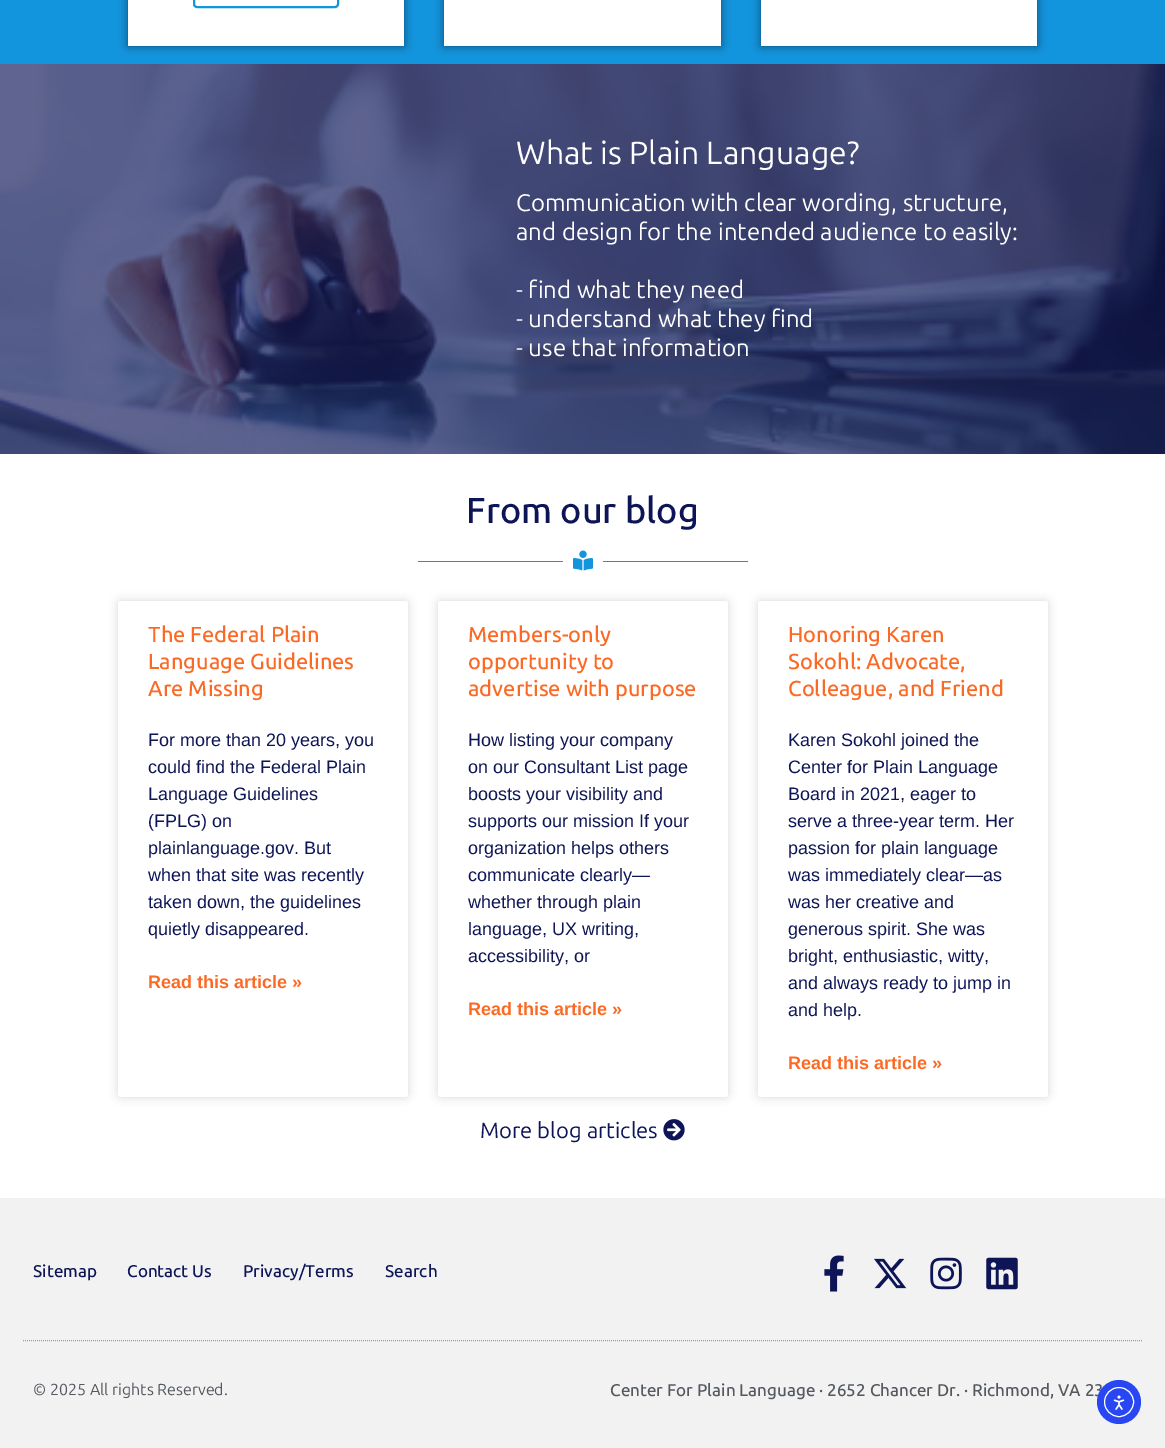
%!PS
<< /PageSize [1165 1448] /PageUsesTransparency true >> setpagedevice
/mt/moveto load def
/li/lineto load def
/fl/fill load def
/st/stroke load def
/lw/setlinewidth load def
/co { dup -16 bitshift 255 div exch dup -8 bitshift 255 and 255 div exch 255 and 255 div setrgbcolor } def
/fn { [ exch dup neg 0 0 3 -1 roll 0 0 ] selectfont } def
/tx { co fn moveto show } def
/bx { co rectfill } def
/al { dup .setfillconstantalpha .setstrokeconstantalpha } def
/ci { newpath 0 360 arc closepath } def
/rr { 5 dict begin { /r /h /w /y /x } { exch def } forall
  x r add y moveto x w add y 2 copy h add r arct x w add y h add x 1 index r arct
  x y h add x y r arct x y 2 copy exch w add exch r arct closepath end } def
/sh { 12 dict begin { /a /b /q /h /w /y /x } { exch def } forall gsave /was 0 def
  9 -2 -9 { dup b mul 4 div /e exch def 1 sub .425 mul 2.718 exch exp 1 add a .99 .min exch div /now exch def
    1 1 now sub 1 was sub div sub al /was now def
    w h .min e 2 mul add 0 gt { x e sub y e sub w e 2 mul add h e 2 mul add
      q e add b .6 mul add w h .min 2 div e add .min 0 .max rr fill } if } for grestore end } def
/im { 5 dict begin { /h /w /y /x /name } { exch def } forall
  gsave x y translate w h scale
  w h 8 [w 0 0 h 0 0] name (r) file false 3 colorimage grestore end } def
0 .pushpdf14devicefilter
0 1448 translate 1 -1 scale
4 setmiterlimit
0 0 1165 1448 16#FFFFFF bx
0 0 1165 64 16#1395DE bx
16#000000 co
128 -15 276 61 0 5 .5 sh
128 0 276 46 16#FFFFFF bx
16#1395DE co
2 lw
194 -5 144 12 3 rr st
16#000000 co
444 -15 277 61 0 5 .5 sh
444 0 277 46 16#FFFFFF bx
16#000000 co
761 -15 276 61 0 5 .5 sh
761 0 276 46 16#FFFFFF bx
(media/1.raw) 0 64 1165 390 im
418 561 145 1 16#1395DE bx
(media/2.raw) 573 550 20 21 im
603 561 145 1 16#1395DE bx
16#000000 co
118 601 290 496 3 5 .15 sh
16#FFFFFF co
118 601 290 496 3 rr fl
16#000000 co
438 601 290 496 3 5 .15 sh
16#FFFFFF co
438 601 290 496 3 rr fl
16#000000 co
758 601 290 496 3 5 .15 sh
16#FFFFFF co
758 601 290 496 3 rr fl
(media/3.raw) 663 1119 22 22 im
0 1198 1165 250 16#F2F2F2 bx
16#9B9B9B co
1 lw
[1 1] 0 setdash
23 1340.5 mt 1143 1340.5 li st
(media/4.raw) 824 1255 20 37 im
(media/5.raw) 874 1258 33 31 im
(media/6.raw) 930 1257 32 33 im
(media/7.raw) 986 1257 32 33 im
(What is Plain Language?) 516 164 /Ubuntu-Regular 32 16#FFFFFF tx
(Communication with clear wording, structure,) 516 211 /Ubuntu-Regular 24 16#FFFFFF tx
(and design for the intended audience to easily:) 516 240 /Ubuntu-Regular 24 16#FFFFFF tx
(- find what they need) 516 298 /Ubuntu-Regular 24 16#FFFFFF tx
(- understand what they find) 516 327 /Ubuntu-Regular 24 16#FFFFFF tx
(- use that information) 516 356 /Ubuntu-Regular 24 16#FFFFFF tx
(From our blog) 466 523 /Ubuntu-Medium 36 16#0D1557 tx
(The Federal Plain) 148 642 /Ubuntu-Medium 21.75 16#FB6A25 tx
(Language Guidelines) 148 669 /Ubuntu-Medium 21.75 16#FB6A25 tx
(Are Missing) 148 696 /Ubuntu-Medium 21.75 16#FB6A25 tx
(For more than 20 years, you) 148 746 /LiberationSans-Regular 18 16#0D1557 tx
(could find the Federal Plain) 148 773 /LiberationSans-Regular 18 16#0D1557 tx
(Language Guidelines) 148 800 /LiberationSans-Regular 18 16#0D1557 tx
(\(FPLG\) on) 148 827 /LiberationSans-Regular 18 16#0D1557 tx
(plainlanguage.gov. But) 148 854 /LiberationSans-Regular 18 16#0D1557 tx
(when that site was recently) 148 881 /LiberationSans-Regular 18 16#0D1557 tx
(taken down, the guidelines) 148 908 /LiberationSans-Regular 18 16#0D1557 tx
(quietly disappeared.) 148 935 /LiberationSans-Regular 18 16#0D1557 tx
(Read this article ») 148 988 /LiberationSans-Bold 18 16#FB6A25 tx
(Members-only) 468 642 /Ubuntu-Medium 21.75 16#FB6A25 tx
(opportunity to) 468 669 /Ubuntu-Medium 21.75 16#FB6A25 tx
(advertise with purpose) 468 696 /Ubuntu-Medium 21.75 16#FB6A25 tx
(How listing your company) 468 746 /LiberationSans-Regular 18 16#0D1557 tx
(on our Consultant List page) 468 773 /LiberationSans-Regular 18 16#0D1557 tx
(boosts your visibility and) 468 800 /LiberationSans-Regular 18 16#0D1557 tx
(supports our mission If your) 468 827 /LiberationSans-Regular 18 16#0D1557 tx
(organization helps others) 468 854 /LiberationSans-Regular 18 16#0D1557 tx
(communicate clearly—) 468 881 /LiberationSans-Regular 18 16#0D1557 tx
(whether through plain) 468 908 /LiberationSans-Regular 18 16#0D1557 tx
(language, UX writing,) 468 935 /LiberationSans-Regular 18 16#0D1557 tx
(accessibility, or) 468 962 /LiberationSans-Regular 18 16#0D1557 tx
(Read this article ») 468 1015 /LiberationSans-Bold 18 16#FB6A25 tx
(Honoring Karen) 788 642 /Ubuntu-Medium 21.75 16#FB6A25 tx
(Sokohl: Advocate,) 788 669 /Ubuntu-Medium 21.75 16#FB6A25 tx
(Colleague, and Friend) 788 696 /Ubuntu-Medium 21.75 16#FB6A25 tx
(Karen Sokohl joined the) 788 746 /LiberationSans-Regular 18 16#0D1557 tx
(Center for Plain Language) 788 773 /LiberationSans-Regular 18 16#0D1557 tx
(Board in 2021, eager to) 788 800 /LiberationSans-Regular 18 16#0D1557 tx
(serve a three-year term. Her) 788 827 /LiberationSans-Regular 18 16#0D1557 tx
(passion for plain language) 788 854 /LiberationSans-Regular 18 16#0D1557 tx
(was immediately clear—as) 788 881 /LiberationSans-Regular 18 16#0D1557 tx
(was her creative and) 788 908 /LiberationSans-Regular 18 16#0D1557 tx
(generous spirit. She was) 788 935 /LiberationSans-Regular 18 16#0D1557 tx
(bright, enthusiastic, witty,) 788 962 /LiberationSans-Regular 18 16#0D1557 tx
(and always ready to jump in) 788 989 /LiberationSans-Regular 18 16#0D1557 tx
(and help.) 788 1016 /LiberationSans-Regular 18 16#0D1557 tx
(Read this article ») 788 1069 /LiberationSans-Bold 18 16#FB6A25 tx
(More blog articles) 480 1138 /Ubuntu-Regular 22 16#0D1557 tx
(Sitemap) 33 1277 /Ubuntu-Medium 17 16#0D1557 tx
(Contact Us) 127 1277 /Ubuntu-Medium 17 16#0D1557 tx
(Privacy/Terms) 243 1277 /Ubuntu-Medium 17 16#0D1557 tx
(Search) 385 1277 /Ubuntu-Medium 17 16#0D1557 tx
(© 2025 All rights Reserved.) 33 1395 /Ubuntu-Regular 16 16#54595F tx
(Center For Plain Language · 2652 Chancer Dr. · Richmond, VA 23) 610 1396 /Ubuntu-Medium 17 16#54595F tx
16#2847F3 co
1119 1402 22 ci fl
16#FFFFFF co
[] 0 setdash
1119 1402 14.5 ci st
(media/8.raw) 1113 1395 12 15 im
.poppdf14devicefilter showpage
